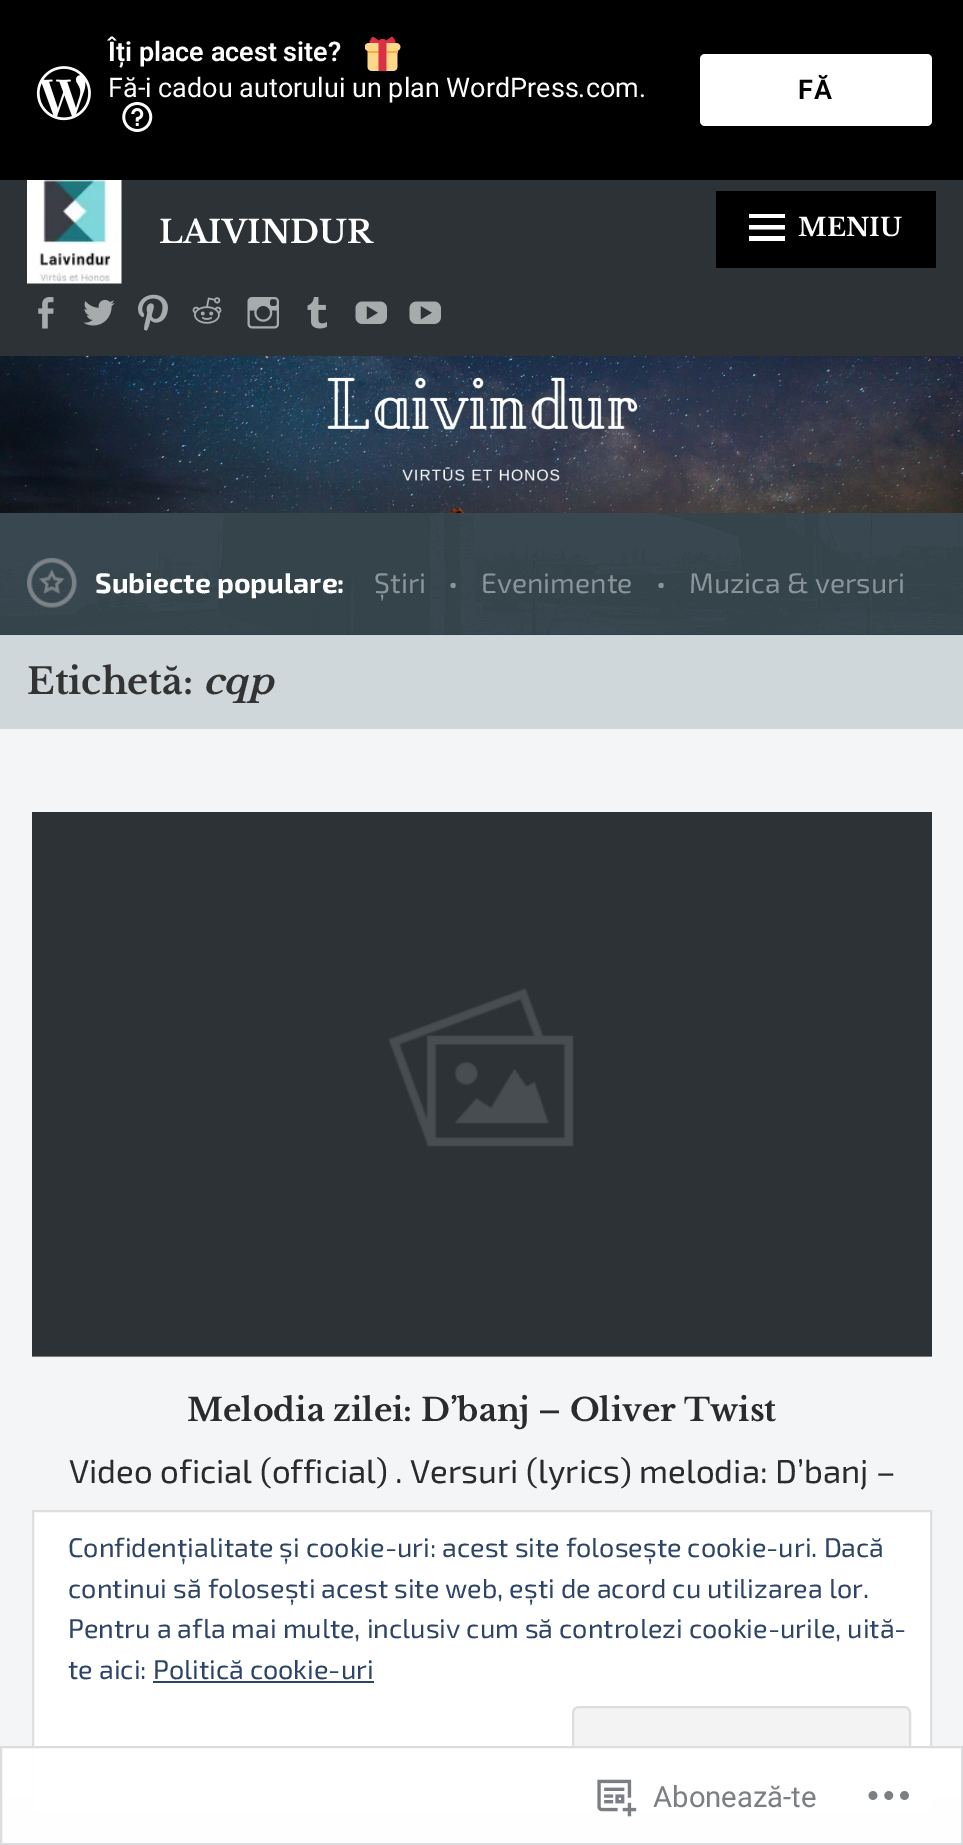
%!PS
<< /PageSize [963 1845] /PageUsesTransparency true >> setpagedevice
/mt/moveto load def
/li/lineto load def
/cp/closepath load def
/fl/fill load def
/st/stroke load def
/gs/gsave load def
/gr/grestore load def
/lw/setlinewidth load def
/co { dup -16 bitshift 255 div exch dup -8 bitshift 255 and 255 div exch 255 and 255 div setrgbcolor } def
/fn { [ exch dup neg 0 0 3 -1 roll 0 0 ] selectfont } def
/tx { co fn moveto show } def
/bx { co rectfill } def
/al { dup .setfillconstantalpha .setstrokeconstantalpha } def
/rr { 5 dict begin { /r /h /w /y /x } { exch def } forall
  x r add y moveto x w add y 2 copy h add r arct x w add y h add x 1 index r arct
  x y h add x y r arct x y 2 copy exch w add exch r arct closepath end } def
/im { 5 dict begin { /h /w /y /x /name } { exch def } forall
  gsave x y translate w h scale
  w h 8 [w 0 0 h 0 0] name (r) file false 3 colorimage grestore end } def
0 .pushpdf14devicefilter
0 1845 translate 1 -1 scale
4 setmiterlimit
0 0 963 1845 16#F4F5F6 bx
0 0 963 180 16#000000 bx
(media/1.raw) 36 66 55 55 im
(media/2.raw) 365 36 36 35 im
16#FFFFFF co
700 54 232 72 5 rr fl
0 180 963 176 16#2C3236 bx
(media/4.raw) 27 180 95 104 im
716 191 220 77 16#000000 bx
16#FFFFFF co
749 241 mt 749 236 li 785 236 li 785 241 li cp 749 214 mt 785 214 li 785 218 li 749 218 li cp 749 229.5 mt 749 225 li 785 225 li 785 229.5 li cp fl
(media/5.raw) 38 297 16 32 im
(media/6.raw) 83 299 32 27 im
(media/7.raw) 138 294 30 37 im
(media/8.raw) 192 297 30 27 im
(media/9.raw) 247 297 32 32 im
(media/10.raw) 307 297 20 32 im
(media/11.raw) 355 301 32 23 im
(media/11.raw) 409 301 32 23 im
(media/12.raw) 0 356 963 157 im
0 634 963 1 16#283C46 bx
(media/13.raw) 0 513 963 122 im
(media/14.raw) 27 558 50 50 im
0 635 963 94 16#D0D7DB bx
(media/15.raw) 32 812 900 545 im
0 1798 963 47 16#BED4DF bx
16#FFFFFF co
33 1511 mt 931 1511 li 931 1813 li 33 1813 li cp gs fl gr
16#DEDEDE co
2 lw
st
153 1681 221 2 16#2E4467 bx
16#F3F3F3 co
573 1707 337 85 6 rr gs fl gr
16#DEDEDE co
st
0.98 al
0 1746 963 99 16#FFFFFF bx
16#DCDCDE co
1 1747 961 97 rectstroke
1 al
(media/16.raw) 597 1779 40 38 im
(media/17.raw) 868 1791 41 9 im
(Îți place acest site?) 108 61 /Roboto-SemiBold 27 16#FFFFFF tx
(Fă-i cadou autorului un plan WordPress.com.) 108 97 /Roboto-Regular 27 16#FFFFFF tx
(media/3.raw) 122 102 31 30 im
/Roboto-SemiBold 27 fn
16#000000 co
798 99 mt 1 0 (FĂ) ashow
(LAIVINDUR) 159 243 /LibreBaskerville-Bold 31.5 16#FFFFFF tx
(MENIU) 798 236 /LibreBaskerville-Bold 25 16#FFFFFF tx
(Subiecte populare:) 95 593 /Exo2-Bold 28.25 16#FFFFFF tx
(Știri) 374 593 /Exo2-Regular 28.25 16#8B949A tx
(•) 448 593 /Exo2-Regular 28.25 16#8B949A tx
(Evenimente) 481 593 /Exo2-Regular 28.25 16#8B949A tx
(•) 656 593 /Exo2-Regular 28.25 16#8B949A tx
(Muzica & versuri) 689 593 /Exo2-Regular 28.25 16#8B949A tx
(Etichetă:) 27 694 /LibreBaskerville-Bold 36 16#333333 tx
(cqp) 203 694 /LibreBaskerville-BoldItalic 36 16#333333 tx
(Melodia zilei: D’banj – Oliver Twist) 187 1421 /LibreBaskerville-Bold 31.5 16#292B2C tx
(Video oficial \(official\) . Versuri \(lyrics\) melodia: D’banj –) 69 1483 /Exo2-Regular 33.1 16#292B2C tx
(Confidențialitate și cookie-uri: acest site folosește cookie-uri. Dacă) 68 1557 /Exo2-Regular 27 16#2E4467 tx
(continui să folosești acest site web, ești de acord cu utilizarea lor.) 68 1598 /Exo2-Regular 27 16#2E4467 tx
(Pentru a afla mai multe, inclusiv cum să controlezi cookie-urile, uită-) 68 1638 /Exo2-Regular 27 16#2E4467 tx
(te aici: Politică cookie-uri) 68 1679 /Exo2-Regular 27 16#2E4467 tx
(Abonează-te) 653 1807 /Roboto-Regular 29.25 16#7B7F84 tx
.poppdf14devicefilter showpage
